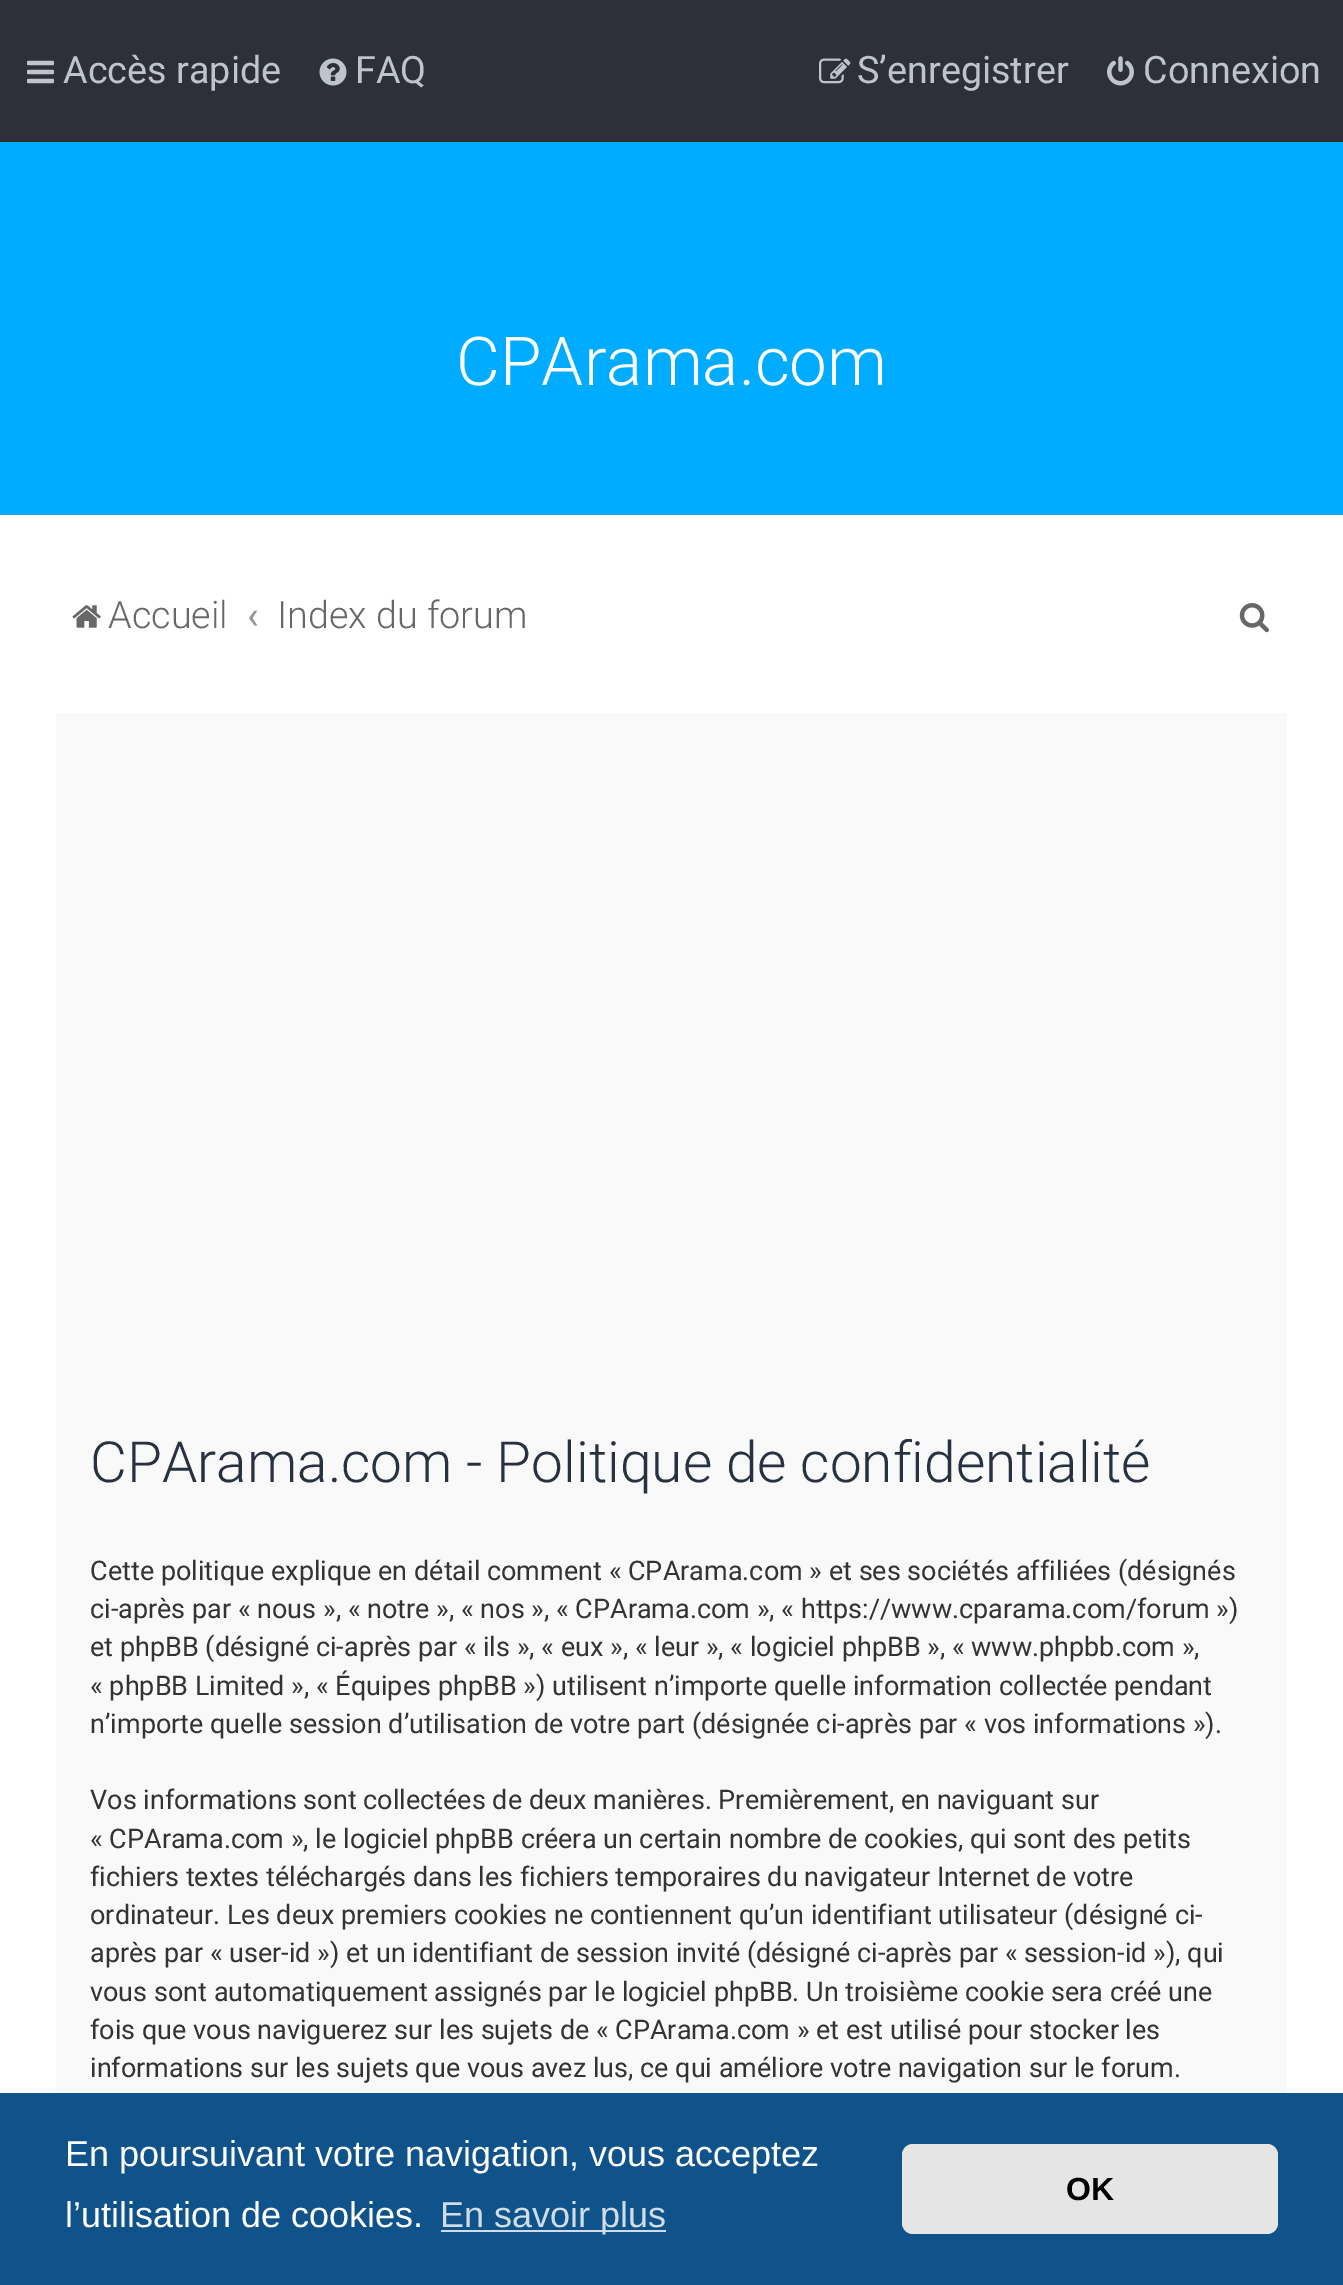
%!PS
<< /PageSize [1343 2285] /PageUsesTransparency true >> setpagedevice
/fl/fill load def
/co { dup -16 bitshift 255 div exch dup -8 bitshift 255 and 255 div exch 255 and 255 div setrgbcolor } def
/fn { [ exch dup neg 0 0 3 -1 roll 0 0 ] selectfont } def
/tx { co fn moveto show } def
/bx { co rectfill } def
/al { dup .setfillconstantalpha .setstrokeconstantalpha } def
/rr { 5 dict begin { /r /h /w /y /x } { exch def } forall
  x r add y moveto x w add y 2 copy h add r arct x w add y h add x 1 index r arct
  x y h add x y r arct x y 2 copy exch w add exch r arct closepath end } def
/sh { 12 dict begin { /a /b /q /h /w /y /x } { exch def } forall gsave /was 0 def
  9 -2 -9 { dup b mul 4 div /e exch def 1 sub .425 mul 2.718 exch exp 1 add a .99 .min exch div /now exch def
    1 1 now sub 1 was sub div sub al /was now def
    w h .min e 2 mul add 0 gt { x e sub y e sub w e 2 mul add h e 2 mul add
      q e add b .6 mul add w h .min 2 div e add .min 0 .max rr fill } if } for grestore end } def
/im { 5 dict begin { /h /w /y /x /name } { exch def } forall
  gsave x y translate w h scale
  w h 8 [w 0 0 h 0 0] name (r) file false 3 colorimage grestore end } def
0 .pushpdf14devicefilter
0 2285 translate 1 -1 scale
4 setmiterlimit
0 0 1343 2285 16#00ACFF bx
0 0 1343 142 16#2D3039 bx
(media/1.raw) 27 60 27 24 im
(media/2.raw) 319 58 28 28 im
(media/3.raw) 819 58 32 26 im
(media/4.raw) 1107 56 27 30 im
16#000000 co
0 515 1343 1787 0 5.5 .05 sh
0 515 1343 1578 16#FFFFFF bx
(media/5.raw) 72 605 29 23 im
(media/6.raw) 1239 603 30 30 im
56 713 1231 1380 16#F9F9F9 bx
0 2093 1343 192 16#0F538A bx
441 2230 225 2 16#CFDDE8 bx
16#E5E5E5 co
902 2144 376 90 11 rr fl
(Accès rapide) 63 83 /Roboto-Regular 37.75 16#BEC4C9 tx
(FAQ) 355 83 /Roboto-Regular 37.75 16#BEC4C9 tx
(S’enregistrer) 857 83 /Roboto-Regular 37.75 16#BEC4C9 tx
(Connexion) 1143 83 /Roboto-Regular 37.75 16#BEC4C9 tx
(CPArama.com) 456 385 /Roboto-Light 67.5 16#FFFFFF tx
(Accueil) 108 628 /Roboto-Light 37.75 16#676767 tx
(‹) 247 628 /Roboto-Medium 37.75 16#999999 tx
(Index du forum) 277 628 /Roboto-Light 37.75 16#676767 tx
(CPArama.com - Politique de confidentialité) 90 1482 /Roboto-Light 56.75 16#28313F tx
(Cette politique explique en détail comment « CPArama.com » et ses sociétés affiliées \(désignés) 90 1580 /Roboto-Regular 27 16#333333 tx
(ci-après par « nous », « notre », « nos », « CPArama.com », « https://www.cparama.com/forum »\)) 90 1618 /Roboto-Regular 27 16#333333 tx
(et phpBB \(désigné ci-après par « ils », « eux », « leur », « logiciel phpBB », « www.phpbb.com »,) 90 1656 /Roboto-Regular 27 16#333333 tx
(« phpBB Limited », « Équipes phpBB »\) utilisent n’importe quelle information collectée pendant) 90 1695 /Roboto-Regular 27 16#333333 tx
(n’importe quelle session d’utilisation de votre part \(désignée ci-après par « vos informations »\).) 90 1733 /Roboto-Regular 27 16#333333 tx
(Vos informations sont collectées de deux manières. Premièrement, en naviguant sur) 90 1809 /Roboto-Regular 27 16#333333 tx
(« CPArama.com », le logiciel phpBB créera un certain nombre de cookies, qui sont des petits) 90 1848 /Roboto-Regular 27 16#333333 tx
(fichiers textes téléchargés dans les fichiers temporaires du navigateur Internet de votre) 90 1886 /Roboto-Regular 27 16#333333 tx
(ordinateur. Les deux premiers cookies ne contiennent qu’un identifiant utilisateur \(désigné ci-) 90 1924 /Roboto-Regular 27 16#333333 tx
(après par « user-id »\) et un identifiant de session invité \(désigné ci-après par « session-id »\), qui) 90 1962 /Roboto-Regular 27 16#333333 tx
(vous sont automatiquement assignés par le logiciel phpBB. Un troisième cookie sera créé une) 90 2001 /Roboto-Regular 27 16#333333 tx
(fois que vous naviguerez sur les sujets de « CPArama.com » et est utilisé pour stocker les) 90 2039 /Roboto-Regular 27 16#333333 tx
(informations sur les sujets que vous avez lus, ce qui améliore votre navigation sur le forum.) 90 2077 /Roboto-Regular 27 16#333333 tx
(En poursuivant votre navigation, vous acceptez) 65 2166 /LiberationSans-Regular 36 16#FFFFFF tx
(l’utilisation de cookies.) 65 2227 /LiberationSans-Regular 36 16#FFFFFF tx
(En savoir plus) 440 2227 /LiberationSans-Regular 36 16#CFDDE8 tx
(OK) 1066 2200 /LiberationSans-Bold 32 16#000000 tx
.poppdf14devicefilter showpage
